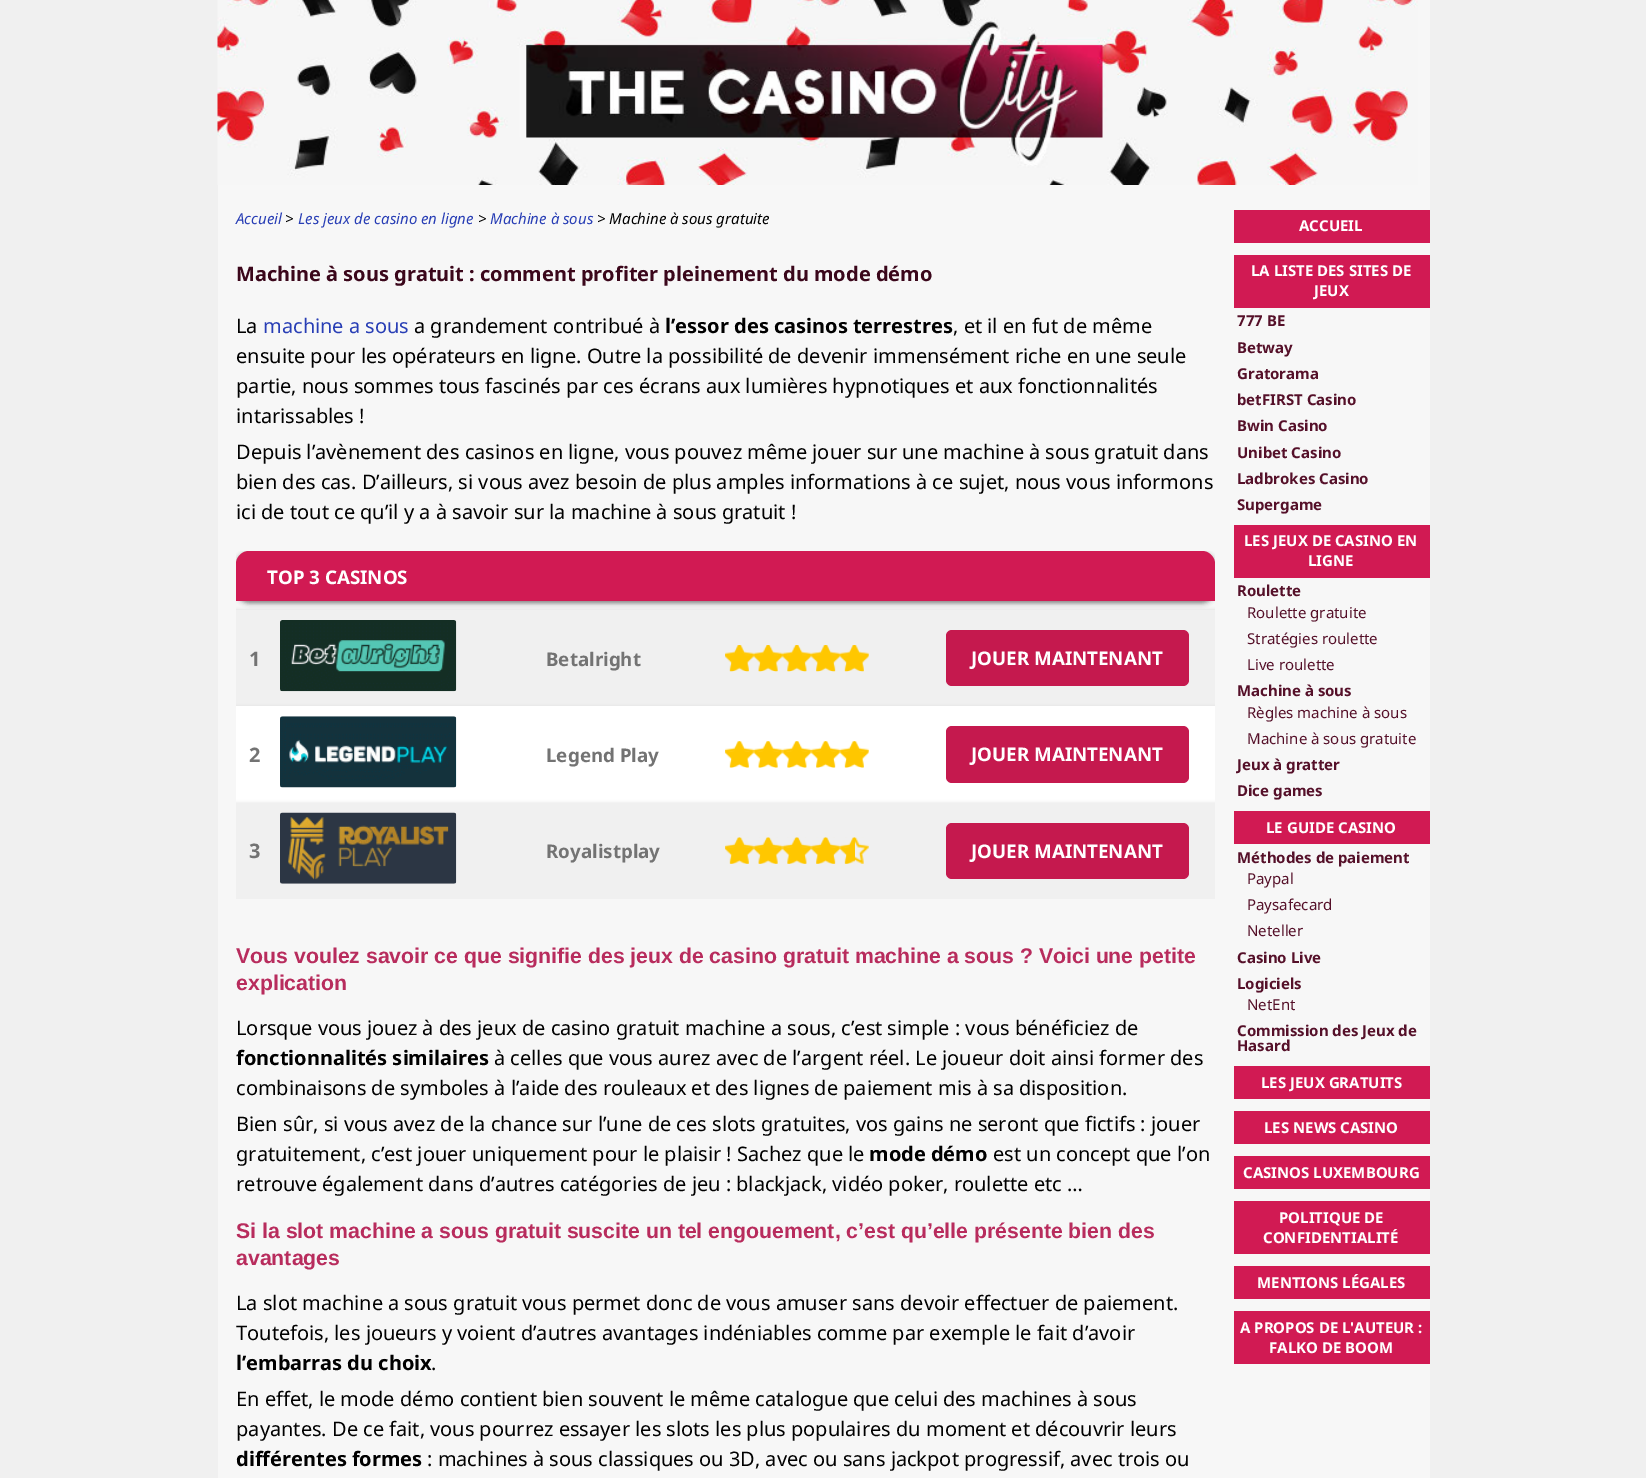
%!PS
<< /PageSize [1646 1478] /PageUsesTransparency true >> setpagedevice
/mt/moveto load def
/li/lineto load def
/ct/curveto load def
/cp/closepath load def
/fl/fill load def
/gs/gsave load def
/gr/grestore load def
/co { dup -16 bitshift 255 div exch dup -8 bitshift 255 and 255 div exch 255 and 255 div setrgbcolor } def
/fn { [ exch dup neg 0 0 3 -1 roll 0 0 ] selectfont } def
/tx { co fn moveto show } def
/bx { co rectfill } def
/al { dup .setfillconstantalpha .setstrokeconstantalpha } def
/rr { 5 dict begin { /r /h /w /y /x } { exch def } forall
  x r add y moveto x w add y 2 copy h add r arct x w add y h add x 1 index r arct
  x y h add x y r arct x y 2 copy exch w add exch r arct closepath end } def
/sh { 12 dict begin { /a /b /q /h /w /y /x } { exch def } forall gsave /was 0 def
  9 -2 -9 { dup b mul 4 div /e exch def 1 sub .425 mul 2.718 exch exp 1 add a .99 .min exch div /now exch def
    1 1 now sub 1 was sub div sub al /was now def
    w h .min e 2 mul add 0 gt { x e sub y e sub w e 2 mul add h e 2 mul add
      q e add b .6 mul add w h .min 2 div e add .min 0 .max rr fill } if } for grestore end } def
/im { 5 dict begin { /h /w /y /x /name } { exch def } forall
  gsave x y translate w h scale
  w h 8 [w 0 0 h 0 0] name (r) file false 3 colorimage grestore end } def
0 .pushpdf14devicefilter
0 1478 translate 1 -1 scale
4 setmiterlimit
0 0 1646 1478 16#F0F0F0 bx
218 0 1212 1478 16#F7F7F7 bx
(media/1.raw) 217 0 1201 185 im
gs
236 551 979 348 rectclip
16#000000 co
236 553 979 50 13 2.5 .5 sh
gr
16#D11A53 co
249 551 mt 1202 551 li 1209 551 1215 557 1215 564 ct 1215 601 li 236 601 li 236 564 li 236 557 242 551 249 551 ct cp fl
gs
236 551 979 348 rectclip
16#000000 co
236 611 979 97 0 2 .2 sh
gr
236 610 979 96 16#F0F0F0 bx
(media/2.raw) 280 620 177 72 im
(media/3.raw) 725 645 144 27 im
(media/4.raw) 725 645 144 27 im
16#C5194E co
946 630 243 56 6 rr fl
gs
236 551 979 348 rectclip
16#000000 co
236 708 979 96 0 2 .2 sh
gr
236 706 979 97 16#FFFFFF bx
(media/5.raw) 280 716 177 72 im
(media/6.raw) 725 741 144 27 im
(media/7.raw) 725 741 144 27 im
16#C5194E co
946 726 243 57 6 rr fl
gs
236 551 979 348 rectclip
16#000000 co
236 804 979 96 0 2 .2 sh
gr
236 803 979 96 16#F0F0F0 bx
(media/8.raw) 280 812 177 72 im
(media/9.raw) 725 837 144 27 im
(media/10.raw) 725 837 130 27 im
16#C5194E co
946 823 243 56 6 rr fl
1234 210 196 33 16#D11A53 bx
1234 255 196 53 16#D11A53 bx
1234 525 196 53 16#D11A53 bx
1234 811 196 33 16#D11A53 bx
1234 1066 196 33 16#D11A53 bx
1234 1111 196 33 16#D11A53 bx
1234 1156 196 33 16#D11A53 bx
1234 1201 196 53 16#D11A53 bx
1234 1266 196 33 16#D11A53 bx
1234 1311 196 53 16#D11A53 bx
(Accueil) 236 224 /NotoSans-Italic 15 16#283EB5 tx
(>) 285 224 /NotoSans-Italic 15 16#000000 tx
(Les jeux de casino en ligne) 298 224 /NotoSans-Italic 15 16#283EB5 tx
(>) 478 224 /NotoSans-Italic 15 16#000000 tx
(Machine à sous) 490 224 /NotoSans-Italic 15 16#283EB5 tx
(> Machine à sous gratuite) 597 224 /NotoSans-Italic 15 16#000000 tx
(Machine à sous gratuit : comment profiter pleinement du mode démo) 236 281 /NotoSans-Bold 20 16#3B071B tx
(La) 236 333 /NotoSans-Regular 20 16#000000 tx
(machine a sous) 263 333 /NotoSans-Regular 20 16#283EB5 tx
(a grandement contribué à) 414 333 /NotoSans-Regular 20 16#000000 tx
(l’essor des casinos terrestres) 665 333 /NotoSans-Bold 20 16#000000 tx
(, et il en fut de même) 953 333 /NotoSans-Regular 20 16#000000 tx
(ensuite pour les opérateurs en ligne. Outre la possibilité de devenir immensément riche en une seule) 236 363 /NotoSans-Regular 20 16#000000 tx
(partie, nous sommes tous fascinés par ces écrans aux lumières hypnotiques et aux fonctionnalités) 236 393 /NotoSans-Regular 20 16#000000 tx
(intarissables !) 236 423 /NotoSans-Regular 20 16#000000 tx
(Depuis l’avènement des casinos en ligne, vous pouvez même jouer sur une machine à sous gratuit dans) 236 459 /NotoSans-Regular 20 16#000000 tx
(bien des cas. D’ailleurs, si vous avez besoin de plus amples informations à ce sujet, nous vous informons) 236 489 /NotoSans-Regular 20 16#000000 tx
(ici de tout ce qu’il y a à savoir sur la machine à sous gratuit !) 236 519 /NotoSans-Regular 20 16#000000 tx
(TOP 3 CASINOS) 267 584 /NotoSans-Bold 18.75 16#FFFFFF tx
(1) 249 666 /NotoSans-Bold 20 16#737373 tx
(Betalright) 546 666 /NotoSans-Bold 18.75 16#737373 tx
(JOUER MAINTENANT) 971 665 /NotoSans-Bold 18.75 16#FFFFFF tx
(2) 249 762 /NotoSans-Bold 20 16#737373 tx
(Legend Play) 546 762 /NotoSans-Bold 18.75 16#737373 tx
(JOUER MAINTENANT) 971 761 /NotoSans-Bold 18.75 16#FFFFFF tx
(3) 249 858 /NotoSans-Bold 20 16#737373 tx
(Royalistplay) 546 858 /NotoSans-Bold 18.75 16#737373 tx
(JOUER MAINTENANT) 971 858 /NotoSans-Bold 18.75 16#FFFFFF tx
(Vous voulez savoir ce que signifie des jeux de casino gratuit machine a sous ? Voici une petite) 236 963 /LiberationSans-Bold 21.25 16#B82C5D tx
(explication) 236 990 /LiberationSans-Bold 21.25 16#B82C5D tx
(Lorsque vous jouez à des jeux de casino gratuit machine a sous, c’est simple : vous bénéficiez de) 236 1035 /NotoSans-Regular 20 16#000000 tx
(fonctionnalités similaires) 236 1065 /NotoSans-Bold 20 16#000000 tx
(à celles que vous aurez avec de l’argent réel. Le joueur doit ainsi former des) 494 1065 /NotoSans-Regular 20 16#000000 tx
(combinaisons de symboles à l’aide des rouleaux et des lignes de paiement mis à sa disposition.) 236 1095 /NotoSans-Regular 20 16#000000 tx
(Bien sûr, si vous avez de la chance sur l’une de ces slots gratuites, vos gains ne seront que fictifs : jouer) 236 1131 /NotoSans-Regular 20 16#000000 tx
(gratuitement, c’est jouer uniquement pour le plaisir ! Sachez que le) 236 1161 /NotoSans-Regular 20 16#000000 tx
(mode démo) 869 1161 /NotoSans-Bold 20 16#000000 tx
(est un concept que l’on) 993 1161 /NotoSans-Regular 20 16#000000 tx
(retrouve également dans d’autres catégories de jeu : blackjack, vidéo poker, roulette etc …) 236 1191 /NotoSans-Regular 20 16#000000 tx
(Si la slot machine a sous gratuit suscite un tel engouement, c’est qu’elle présente bien des) 236 1238 /LiberationSans-Bold 21.25 16#B82C5D tx
(avantages) 236 1265 /LiberationSans-Bold 21.25 16#B82C5D tx
(La slot machine a sous gratuit vous permet donc de vous amuser sans devoir effectuer de paiement.) 236 1310 /NotoSans-Regular 20 16#000000 tx
(Toutefois, les joueurs y voient d’autres avantages indéniables comme par exemple le fait d’avoir) 236 1340 /NotoSans-Regular 20 16#000000 tx
(l’embarras du choix) 236 1370 /NotoSans-Bold 20 16#000000 tx
(.) 431 1370 /NotoSans-Regular 20 16#000000 tx
(En effet, le mode démo contient bien souvent le même catalogue que celui des machines à sous) 236 1406 /NotoSans-Regular 20 16#000000 tx
(payantes. De ce fait, vous pourrez essayer les slots les plus populaires du moment et découvrir leurs) 236 1436 /NotoSans-Regular 20 16#000000 tx
(différentes formes) 236 1466 /NotoSans-Bold 20 16#000000 tx
(: machines à sous classiques ou 3D, avec ou sans jackpot progressif, avec trois ou) 427 1466 /NotoSans-Regular 20 16#000000 tx
(ACCUEIL) 1299 231 /NotoSans-Bold 15 16#FFFFFF tx
(LA LISTE DES SITES DE) 1251 276 /NotoSans-Bold 15 16#FFFFFF tx
(JEUX) 1314 296 /NotoSans-Bold 15 16#FFFFFF tx
(777 BE) 1237 326 /NotoSans-Bold 15 16#551029 tx
(Betway) 1237 353 /NotoSans-Bold 15 16#551029 tx
(Gratorama) 1237 379 /NotoSans-Bold 15 16#551029 tx
(betFIRST Casino) 1237 405 /NotoSans-Bold 15 16#551029 tx
(Bwin Casino) 1237 431 /NotoSans-Bold 15 16#551029 tx
(Unibet Casino) 1237 458 /NotoSans-Bold 15 16#551029 tx
(Ladbrokes Casino) 1237 484 /NotoSans-Bold 15 16#551029 tx
(Supergame) 1237 510 /NotoSans-Bold 15 16#551029 tx
(LES JEUX DE CASINO EN) 1244 546 /NotoSans-Bold 15 16#FFFFFF tx
(LIGNE) 1308 566 /NotoSans-Bold 15 16#FFFFFF tx
(Roulette) 1237 596 /NotoSans-Bold 15 16#551029 tx
(Roulette gratuite) 1247 618 /NotoSans-Regular 15 16#551029 tx
(Stratégies roulette) 1247 644 /NotoSans-Regular 15 16#551029 tx
(Live roulette) 1247 670 /NotoSans-Regular 15 16#551029 tx
(Machine à sous) 1237 696 /NotoSans-Bold 15 16#551029 tx
(Règles machine à sous) 1247 718 /NotoSans-Regular 15 16#551029 tx
(Machine à sous gratuite) 1247 744 /NotoSans-Regular 15 16#551029 tx
(Jeux à gratter) 1237 770 /NotoSans-Bold 15 16#551029 tx
(Dice games) 1237 796 /NotoSans-Bold 15 16#551029 tx
(LE GUIDE CASINO) 1266 833 /NotoSans-Bold 15 16#FFFFFF tx
(Méthodes de paiement) 1237 863 /NotoSans-Bold 15 16#551029 tx
(Paypal) 1247 884 /NotoSans-Regular 15 16#551029 tx
(Paysafecard) 1247 910 /NotoSans-Regular 15 16#551029 tx
(Neteller) 1247 936 /NotoSans-Regular 15 16#551029 tx
(Casino Live) 1237 963 /NotoSans-Bold 15 16#551029 tx
(Logiciels) 1237 989 /NotoSans-Bold 15 16#551029 tx
(NetEnt) 1247 1010 /NotoSans-Regular 15 16#551029 tx
(Commission des Jeux de) 1237 1036 /NotoSans-Bold 15 16#551029 tx
(Hasard) 1237 1051 /NotoSans-Bold 15 16#551029 tx
(LES JEUX GRATUITS) 1261 1088 /NotoSans-Bold 15 16#FFFFFF tx
(LES NEWS CASINO) 1264 1133 /NotoSans-Bold 15 16#FFFFFF tx
(CASINOS LUXEMBOURG) 1243 1178 /NotoSans-Bold 15 16#FFFFFF tx
(POLITIQUE DE) 1279 1223 /NotoSans-Bold 15 16#FFFFFF tx
(CONFIDENTIALITÉ) 1263 1243 /NotoSans-Bold 15 16#FFFFFF tx
(MENTIONS LÉGALES) 1257 1288 /NotoSans-Bold 15 16#FFFFFF tx
(A PROPOS DE L'AUTEUR :) 1240 1333 /NotoSans-Bold 15 16#FFFFFF tx
(FALKO DE BOOM) 1269 1353 /NotoSans-Bold 15 16#FFFFFF tx
.poppdf14devicefilter showpage
